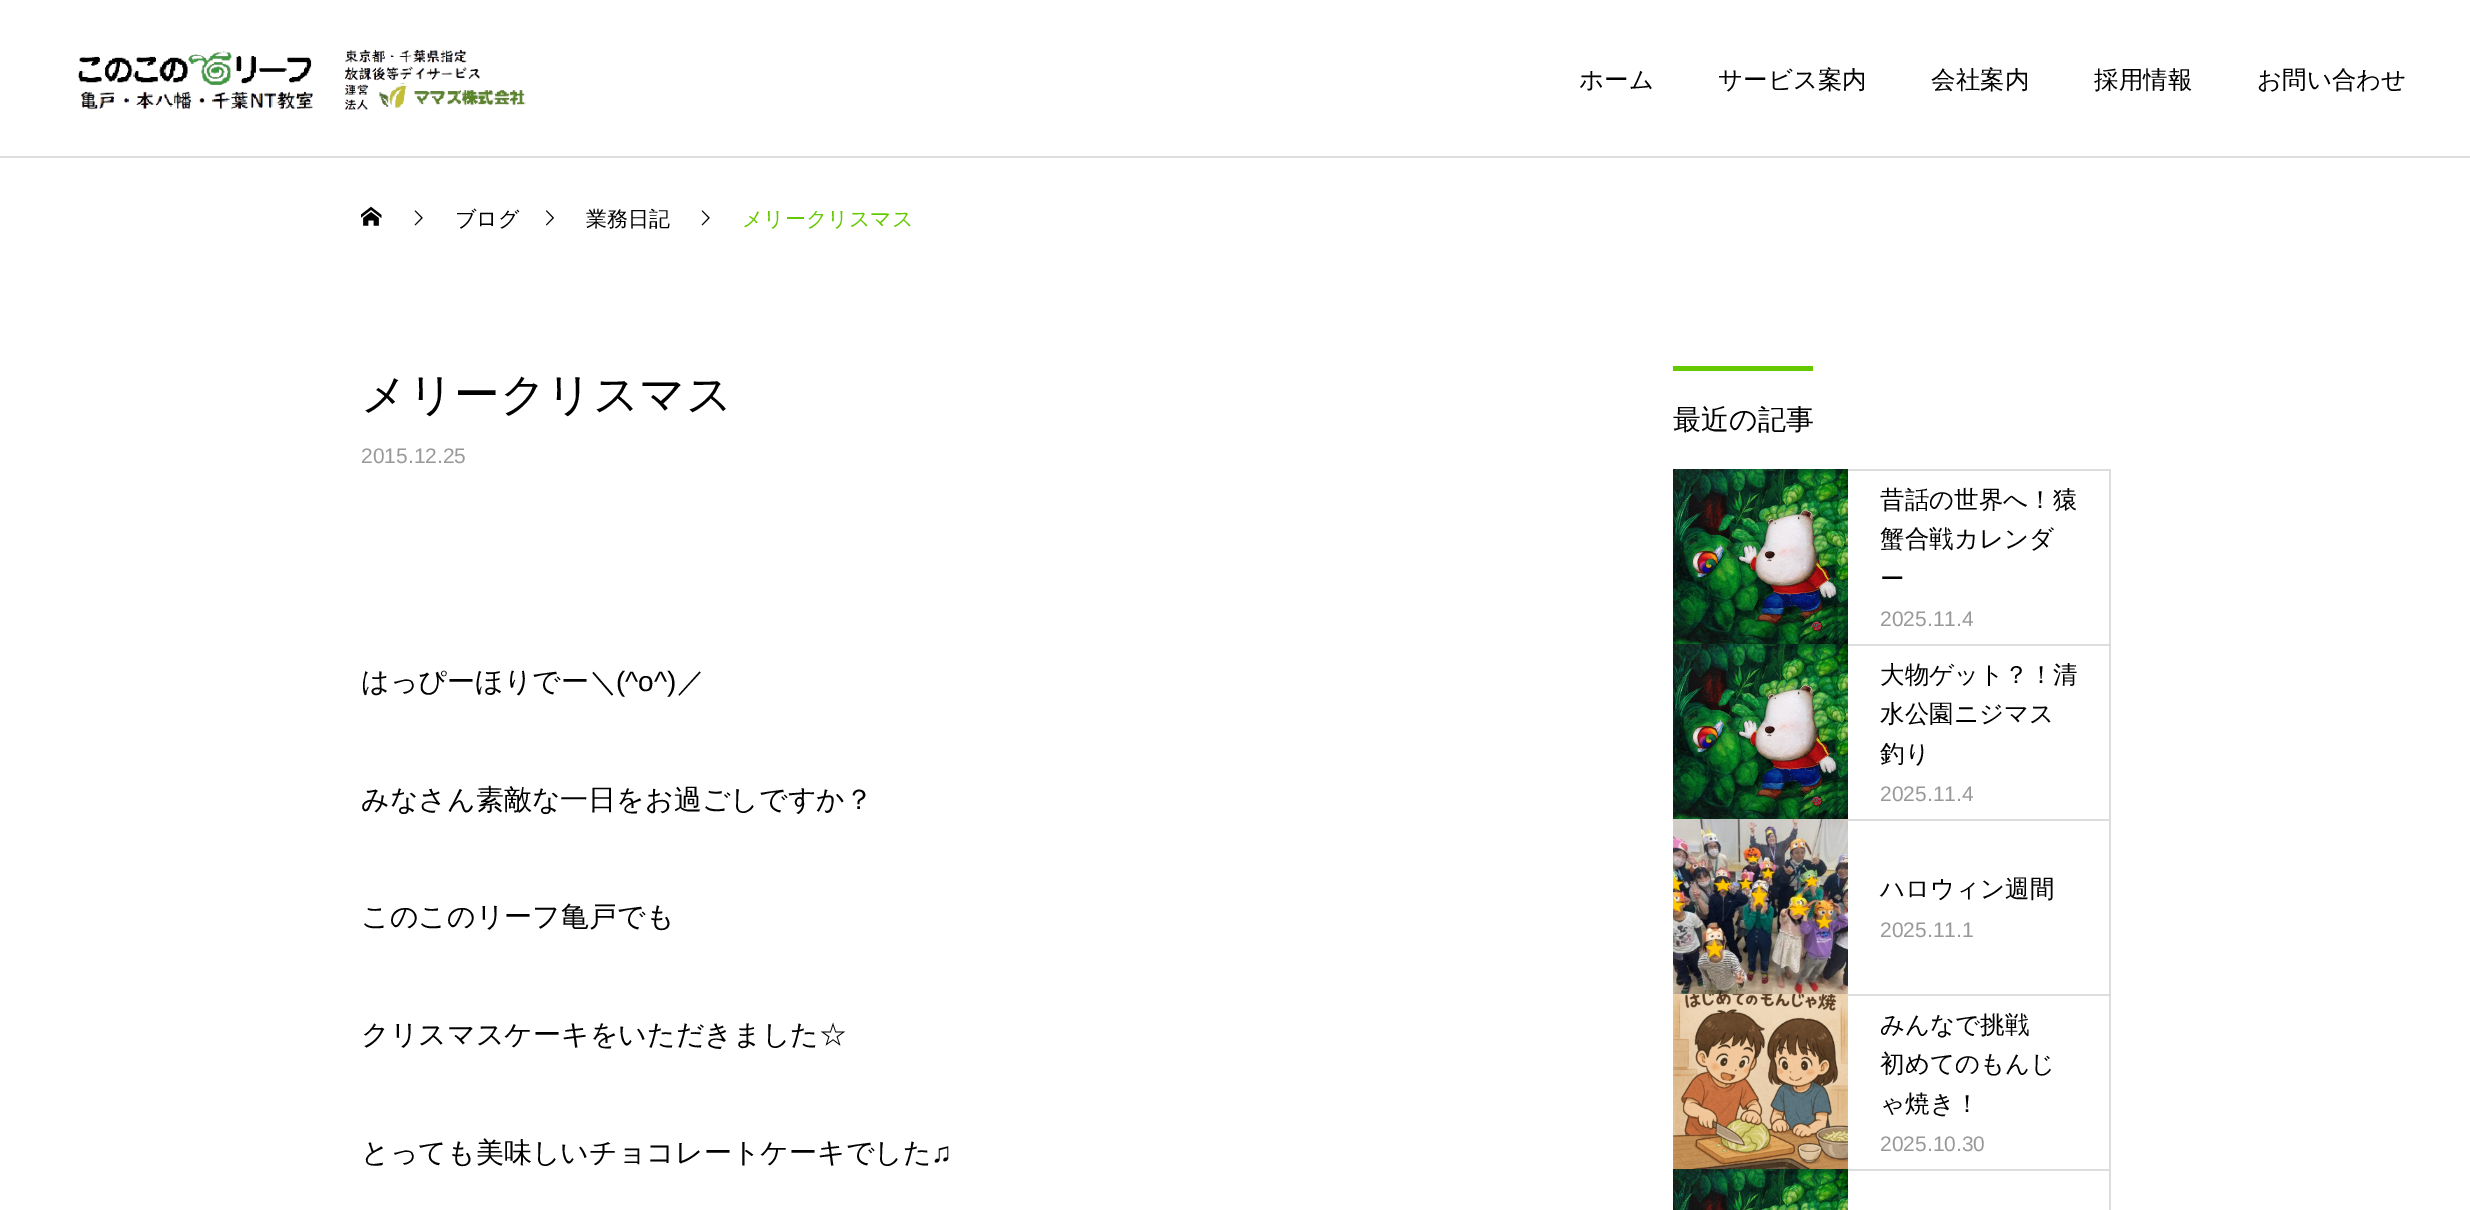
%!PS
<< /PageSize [2470 1210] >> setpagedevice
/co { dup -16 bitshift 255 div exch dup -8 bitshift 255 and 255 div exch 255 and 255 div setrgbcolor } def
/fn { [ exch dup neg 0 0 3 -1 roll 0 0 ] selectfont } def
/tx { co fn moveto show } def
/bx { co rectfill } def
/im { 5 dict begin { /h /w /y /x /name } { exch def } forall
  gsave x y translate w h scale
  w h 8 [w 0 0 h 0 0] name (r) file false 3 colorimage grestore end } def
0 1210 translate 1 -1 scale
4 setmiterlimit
0 0 2470 1210 16#FFFFFF bx
0 156 2470 2 16#DDDDDD bx
(media/1.raw) 78 49 448 61 im
(media/2.raw) 361 206 21 20 im
(media/3.raw) 414 210 9 16 im
(media/4.raw) 546 210 8 16 im
(media/3.raw) 701 210 9 16 im
1673 366 140 5 16#64C900 bx
(media/5.raw) 1673 469 175 175 im
1848 469 263 2 16#DDDDDD bx
2109 469 2 175 16#DDDDDD bx
(media/5.raw) 1673 644 175 175 im
1848 644 263 2 16#DDDDDD bx
2109 644 2 175 16#DDDDDD bx
(media/6.raw) 1673 819 175 175 im
1848 819 263 2 16#DDDDDD bx
2109 819 2 175 16#DDDDDD bx
(media/7.raw) 1673 994 175 175 im
1848 994 263 2 16#DDDDDD bx
2109 994 2 175 16#DDDDDD bx
(media/8.raw) 1673 1169 175 41 im
1848 1169 263 2 16#DDDDDD bx
2109 1169 2 41 16#DDDDDD bx
(ホーム) 1579 88 /WenQuanYiZenHei-Medium 24.5 16#000000 tx
(サービス案内) 1718 88 /WenQuanYiZenHei-Medium 24.5 16#000000 tx
(会社案内) 1931 88 /WenQuanYiZenHei-Medium 24.5 16#000000 tx
(採用情報) 2094 88 /WenQuanYiZenHei-Medium 24.5 16#000000 tx
(お問い合わせ) 2257 88 /WenQuanYiZenHei-Medium 24.5 16#000000 tx
(ブログ) 455 226 /WenQuanYiZenHei-Medium 21 16#000000 tx
(業務日記) 586 226 /WenQuanYiZenHei-Medium 21 16#000000 tx
(メリークリスマス) 742 226 /WenQuanYiZenHei-Medium 21 16#64C900 tx
(メリークリスマス) 361 410 /WenQuanYiZenHei-Medium 45.5 16#000000 tx
(2015.12.25) 361 463 /LiberationSans-Regular 21 16#999999 tx
(はっぴーほりでー＼) 361 691 /WenQuanYiZenHei-Medium 28 16#000000 tx
(\(^o^\)) 616 691 /LiberationSans-Regular 28 16#000000 tx
(／) 677 691 /WenQuanYiZenHei-Medium 28 16#000000 tx
(みなさん素敵な一日をお過ごしですか？) 361 809 /WenQuanYiZenHei-Medium 28 16#000000 tx
(このこのリーフ亀戸でも) 361 926 /WenQuanYiZenHei-Medium 28 16#000000 tx
(クリスマスケーキをいただきました☆) 361 1044 /WenQuanYiZenHei-Medium 28 16#000000 tx
(とっても美味しいチョコレートケーキでした) 361 1162 /WenQuanYiZenHei-Medium 28 16#000000 tx
(♫) 931 1162 /LiberationSans-Regular 28 16#000000 tx
(最近の記事) 1673 429 /WenQuanYiZenHei-Medium 28 16#000000 tx
(昔話の世界へ！猿) 1880 508 /WenQuanYiZenHei-Medium 24.5 16#000000 tx
(蟹合戦カレンダ) 1880 547 /WenQuanYiZenHei-Medium 24.5 16#000000 tx
(ー) 1880 587 /WenQuanYiZenHei-Medium 24.5 16#000000 tx
(2025.11.4) 1880 626 /LiberationSans-Regular 21 16#999999 tx
(大物ゲット？！清) 1880 683 /WenQuanYiZenHei-Medium 24.5 16#000000 tx
(水公園ニジマス) 1880 722 /WenQuanYiZenHei-Medium 24.5 16#000000 tx
(釣り) 1880 762 /WenQuanYiZenHei-Medium 24.5 16#000000 tx
(2025.11.4) 1880 801 /LiberationSans-Regular 21 16#999999 tx
(ハロウィン週間) 1880 897 /WenQuanYiZenHei-Medium 24.5 16#000000 tx
(2025.11.1) 1880 937 /LiberationSans-Regular 21 16#999999 tx
(みんなで挑戦) 1880 1033 /WenQuanYiZenHei-Medium 24.5 16#000000 tx
(初めてのもんじ) 1880 1072 /WenQuanYiZenHei-Medium 24.5 16#000000 tx
(ゃ焼き！) 1880 1112 /WenQuanYiZenHei-Medium 24.5 16#000000 tx
(2025.10.30) 1880 1151 /LiberationSans-Regular 21 16#999999 tx
showpage
